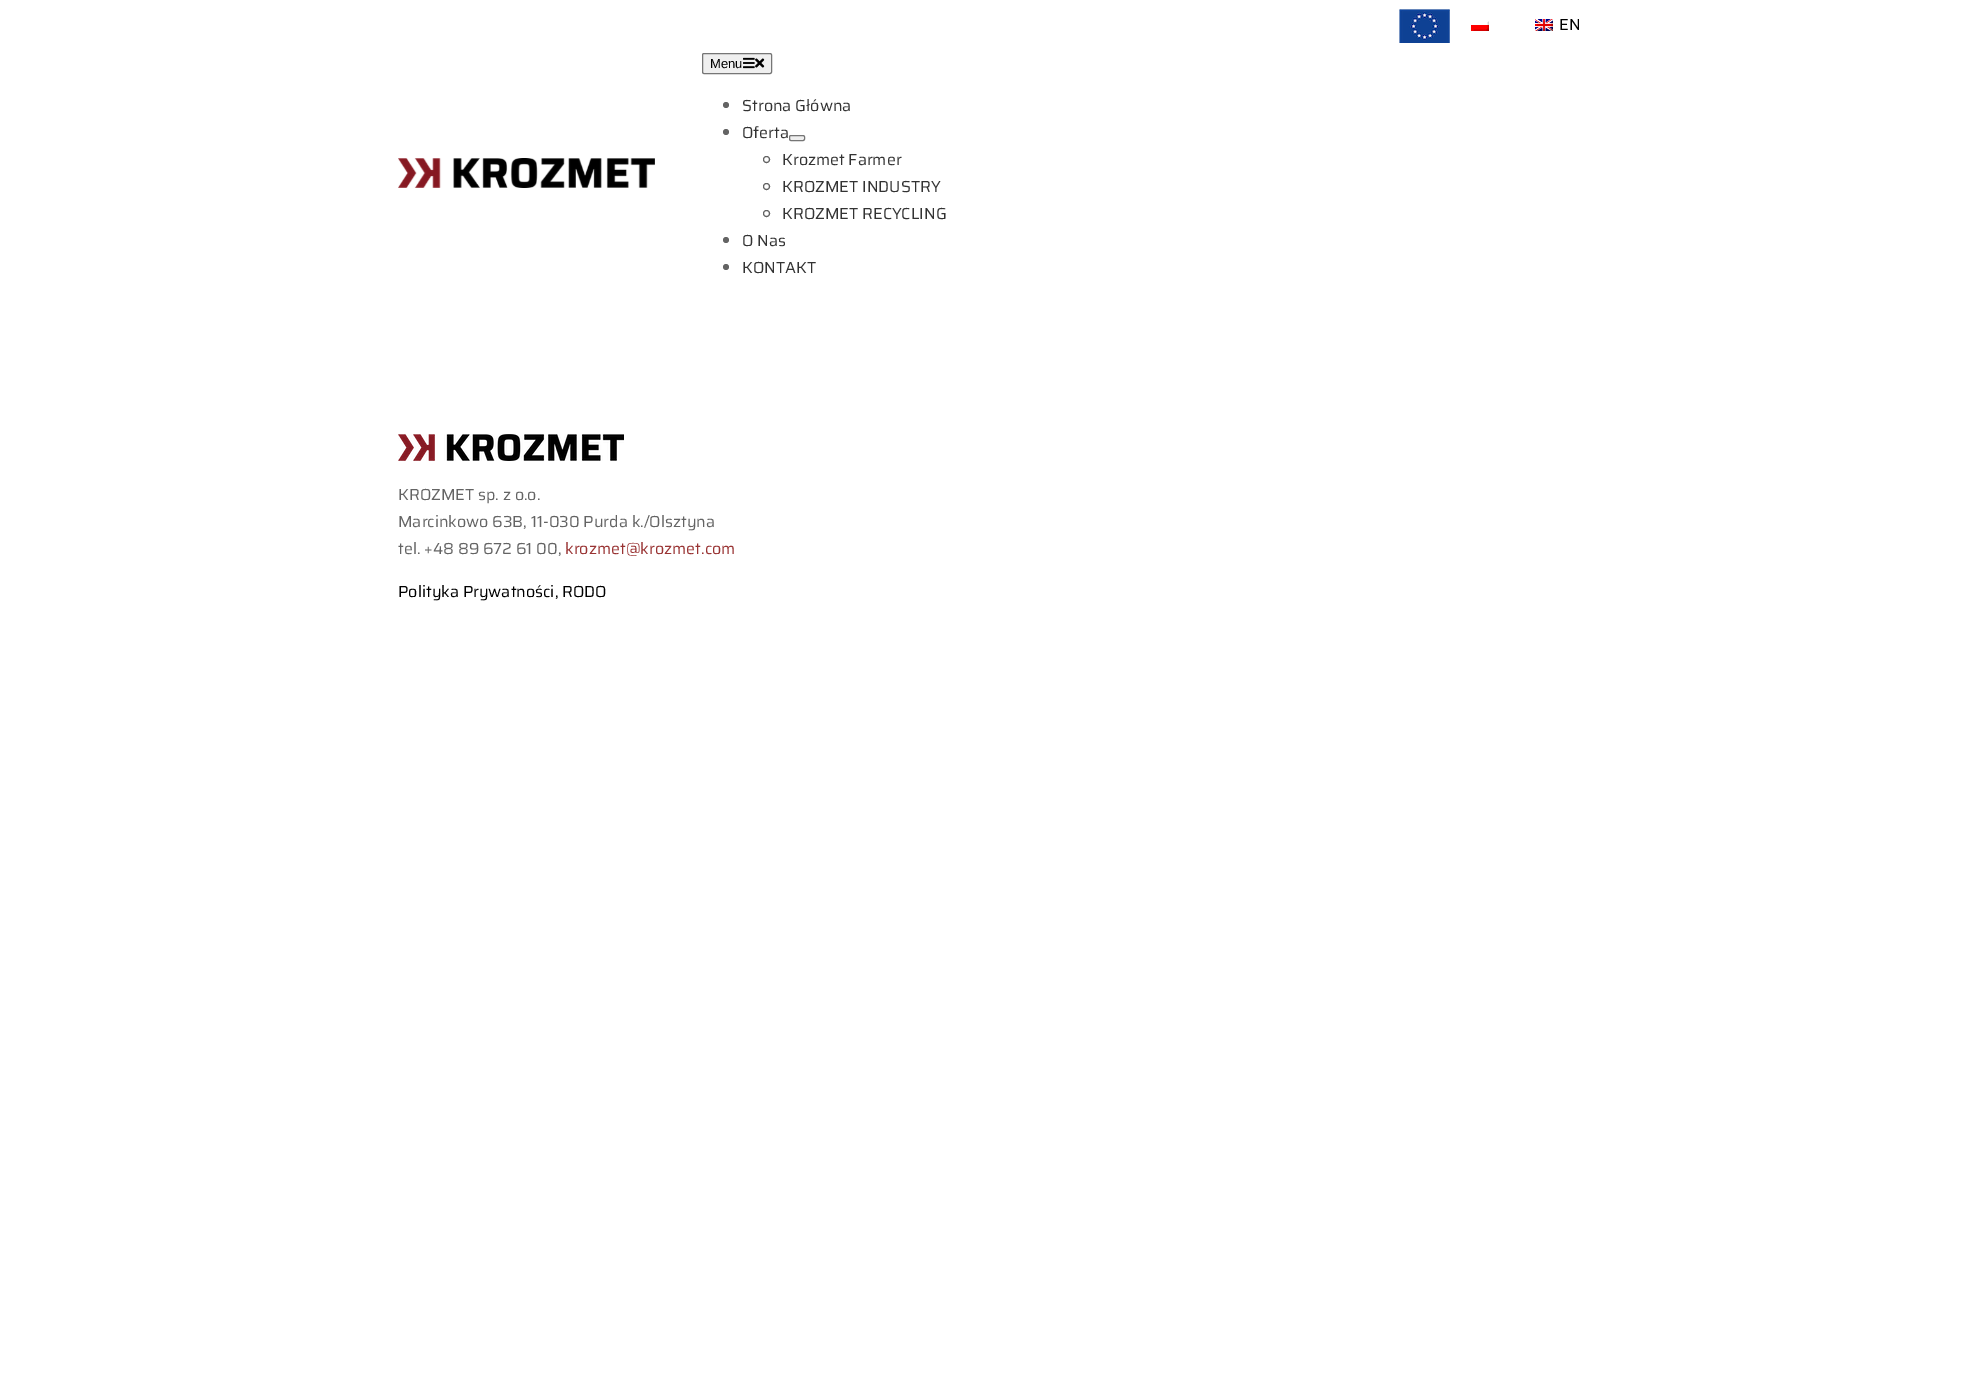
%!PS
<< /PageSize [1966 1399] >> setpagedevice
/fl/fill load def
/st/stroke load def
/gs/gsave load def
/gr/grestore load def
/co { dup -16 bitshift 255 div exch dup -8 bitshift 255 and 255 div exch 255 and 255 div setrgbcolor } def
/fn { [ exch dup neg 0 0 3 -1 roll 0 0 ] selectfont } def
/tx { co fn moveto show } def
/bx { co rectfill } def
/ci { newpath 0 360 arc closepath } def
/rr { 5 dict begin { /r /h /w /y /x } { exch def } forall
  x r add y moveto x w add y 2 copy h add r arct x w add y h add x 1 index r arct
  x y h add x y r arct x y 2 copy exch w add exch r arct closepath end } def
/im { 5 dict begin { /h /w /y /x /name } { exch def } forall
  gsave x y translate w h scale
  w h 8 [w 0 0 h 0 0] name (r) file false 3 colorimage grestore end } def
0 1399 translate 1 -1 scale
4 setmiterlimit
0 0 1966 1399 16#FFFFFF bx
(media/1.raw) 1399 9 51 34 im
(media/2.raw) 1471 21 18 10 im
(media/3.raw) 1535 19 18 12 im
(media/4.raw) 398 158 257 30 im
16#EFEFEF co
702.5 53.5 69 20 1.5 rr gs fl gr
16#767676 co
st
(media/5.raw) 743 57 12 12 im
(media/6.raw) 755 58 10 10 im
16#646464 co
726 105 3 ci fl
726 132 3 ci fl
16#EFEFEF co
789.5 135.5 15 5 1.5 rr gs fl gr
16#767676 co
st
16#646464 co
766.5 159.5 3 ci st
766.5 186.5 3 ci st
766.5 213.5 3 ci st
726 240 3 ci fl
726 267 3 ci fl
(media/7.raw) 398 434 226 27 im
(EN) 1559 30 /Saira-Regular 16 16#000000 tx
(Menu) 710 68 /LiberationSans-Regular 13 16#000000 tx
(Strona Główna) 742 111 /Saira-Regular 16 16#333333 tx
(Oferta) 742 138 /Saira-Regular 16 16#333333 tx
(Krozmet Farmer) 782 165 /Saira-Regular 16 16#333333 tx
(KROZMET INDUSTRY) 782 192 /Saira-Regular 16 16#333333 tx
(KROZMET RECYCLING) 782 219 /Saira-Regular 16 16#333333 tx
(O Nas) 742 246 /Saira-Regular 16 16#333333 tx
(KONTAKT) 742 273 /Saira-Regular 16 16#333333 tx
(KROZMET sp. z o.o.) 398 500 /Saira-Regular 16 16#646464 tx
(Marcinkowo 63B, 11-030 Purda k./Olsztyna) 398 527 /Saira-Regular 16 16#646464 tx
(tel. +48 89 672 61 00,) 398 554 /Saira-Regular 16 16#646464 tx
(krozmet@krozmet.com) 565 554 /Saira-Regular 16 16#993333 tx
(Polityka Prywatności, RODO) 398 597 /Saira-Regular 16 16#000000 tx
showpage
